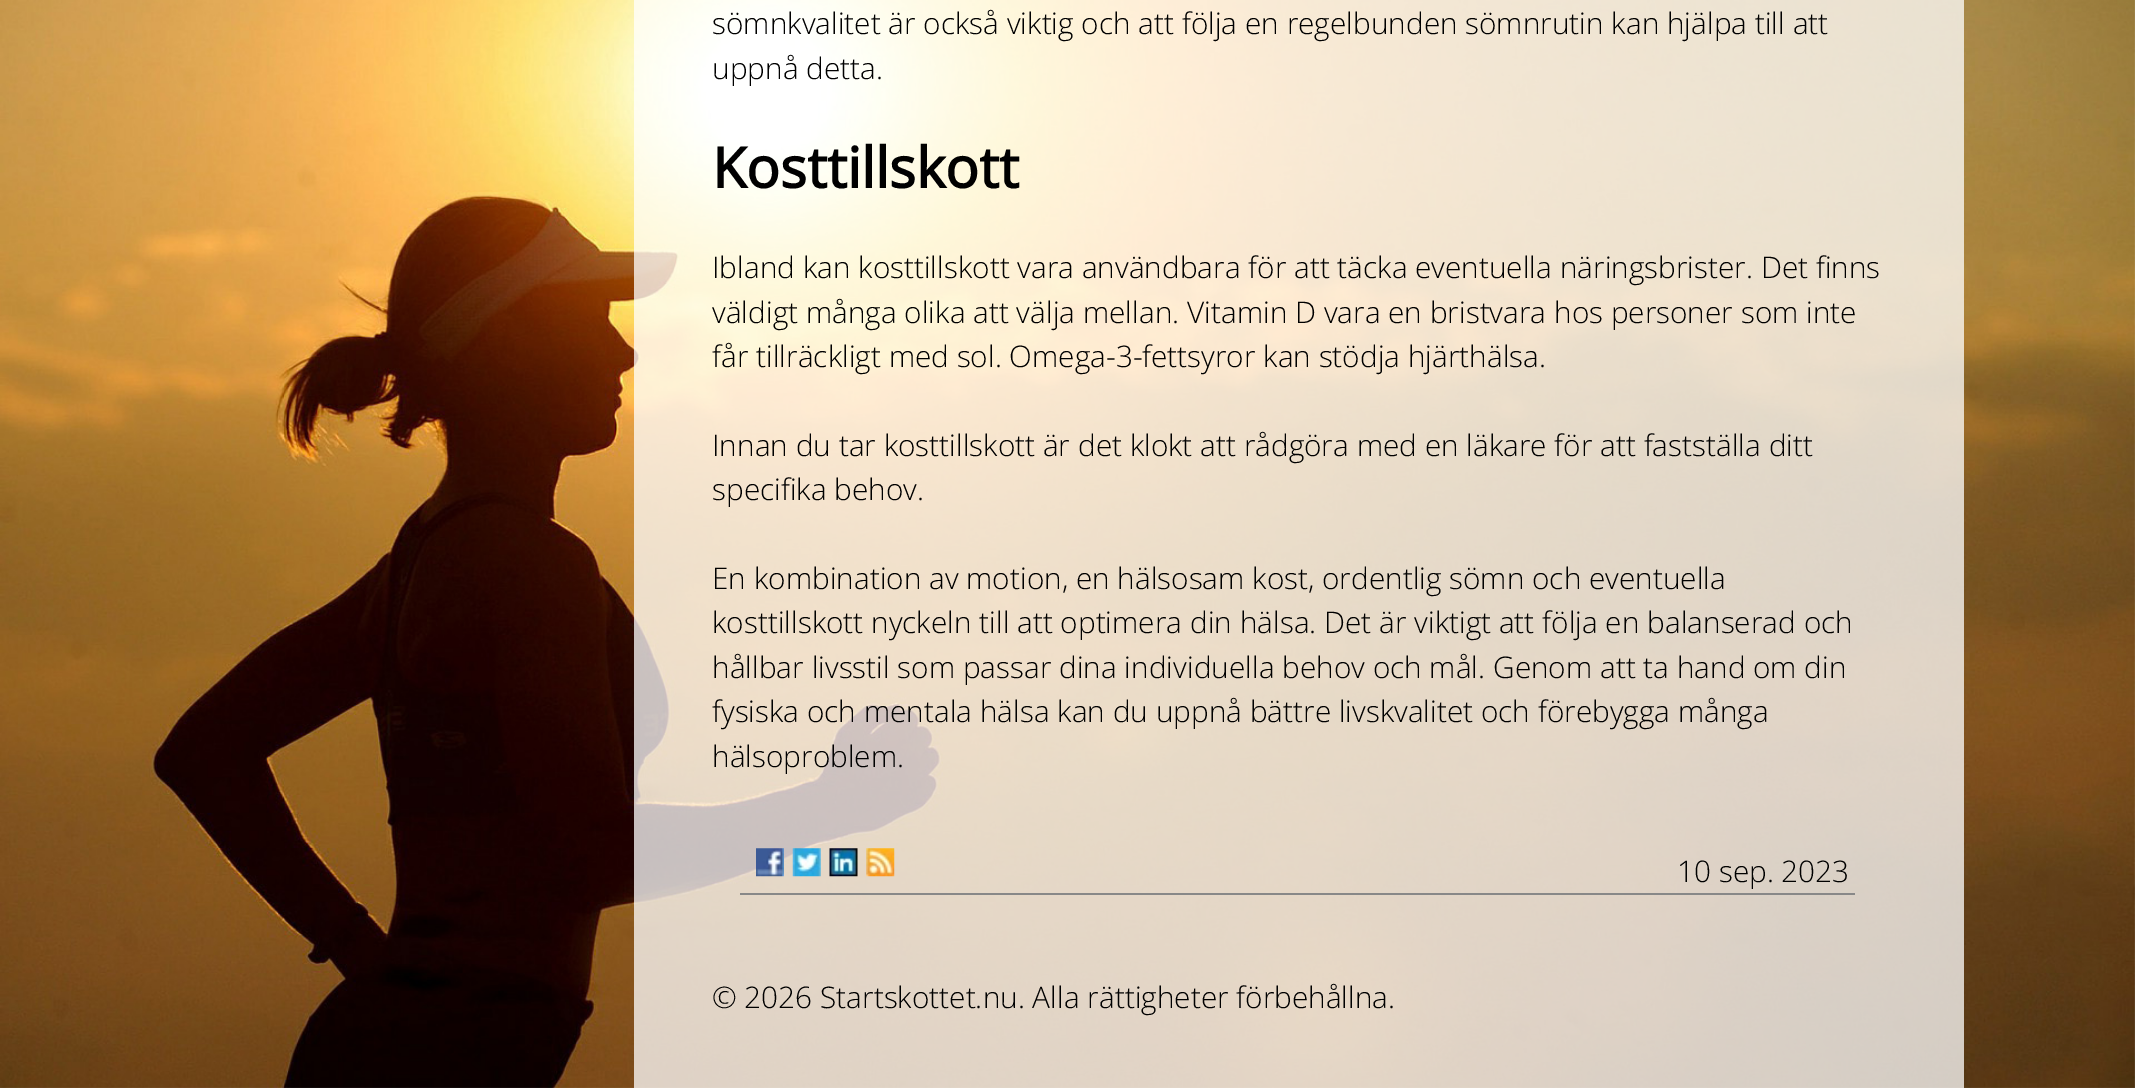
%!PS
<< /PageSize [2135 1088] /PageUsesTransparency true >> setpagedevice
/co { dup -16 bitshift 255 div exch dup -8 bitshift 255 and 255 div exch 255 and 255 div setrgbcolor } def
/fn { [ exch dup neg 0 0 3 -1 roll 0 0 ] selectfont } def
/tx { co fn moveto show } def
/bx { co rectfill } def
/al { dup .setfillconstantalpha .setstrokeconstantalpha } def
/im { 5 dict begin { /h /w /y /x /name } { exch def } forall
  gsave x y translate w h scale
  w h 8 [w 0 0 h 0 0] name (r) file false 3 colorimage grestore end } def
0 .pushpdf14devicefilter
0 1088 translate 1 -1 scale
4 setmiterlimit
0 0 2135 1088 16#FFFFFF bx
(media/1.raw) 0 0 2135 1088 im
0.75 al
634 0 1330 1088 16#FFFFFF bx
1 al
(media/2.raw) 756 848 28 29 im
(media/3.raw) 792 848 29 29 im
(media/4.raw) 829 848 29 29 im
(media/5.raw) 866 848 29 29 im
740 893 1115 2 16#888888 bx
(sömnkvalitet är också viktig och att följa en regelbunden sömnrutin kan hjälpa till att) 712 34 /OpenSans-Light 29.75 16#000000 tx
(uppnå detta.) 712 79 /OpenSans-Light 29.75 16#000000 tx
(Kosttillskott) 712 188 /OpenSans-Bold 56 16#000000 tx
(Ibland kan kosttillskott vara användbara för att täcka eventuella näringsbrister. Det finns) 712 278 /OpenSans-Light 29.75 16#000000 tx
(väldigt många olika att välja mellan. Vitamin D vara en bristvara hos personer som inte) 712 323 /OpenSans-Light 29.75 16#000000 tx
(får tillräckligt med sol. Omega-3-fettsyror kan stödja hjärthälsa.) 712 367 /OpenSans-Light 29.75 16#000000 tx
(Innan du tar kosttillskott är det klokt att rådgöra med en läkare för att fastställa ditt) 712 456 /OpenSans-Light 29.75 16#000000 tx
(specifika behov.) 712 500 /OpenSans-Light 29.75 16#000000 tx
(En kombination av motion, en hälsosam kost, ordentlig sömn och eventuella) 712 589 /OpenSans-Light 29.75 16#000000 tx
(kosttillskott nyckeln till att optimera din hälsa. Det är viktigt att följa en balanserad och) 712 633 /OpenSans-Light 29.75 16#000000 tx
(hållbar livsstil som passar dina individuella behov och mål. Genom att ta hand om din) 712 678 /OpenSans-Light 29.75 16#000000 tx
(fysiska och mentala hälsa kan du uppnå bättre livskvalitet och förebygga många) 712 722 /OpenSans-Light 29.75 16#000000 tx
(hälsoproblem.) 712 767 /OpenSans-Light 29.75 16#000000 tx
(10 sep. 2023) 1677 882 /OpenSans-Light 29.75 16#000000 tx
(© 2026 Startskottet.nu. Alla rättigheter förbehållna.) 712 1008 /OpenSans-Light 29.75 16#000000 tx
.poppdf14devicefilter showpage
